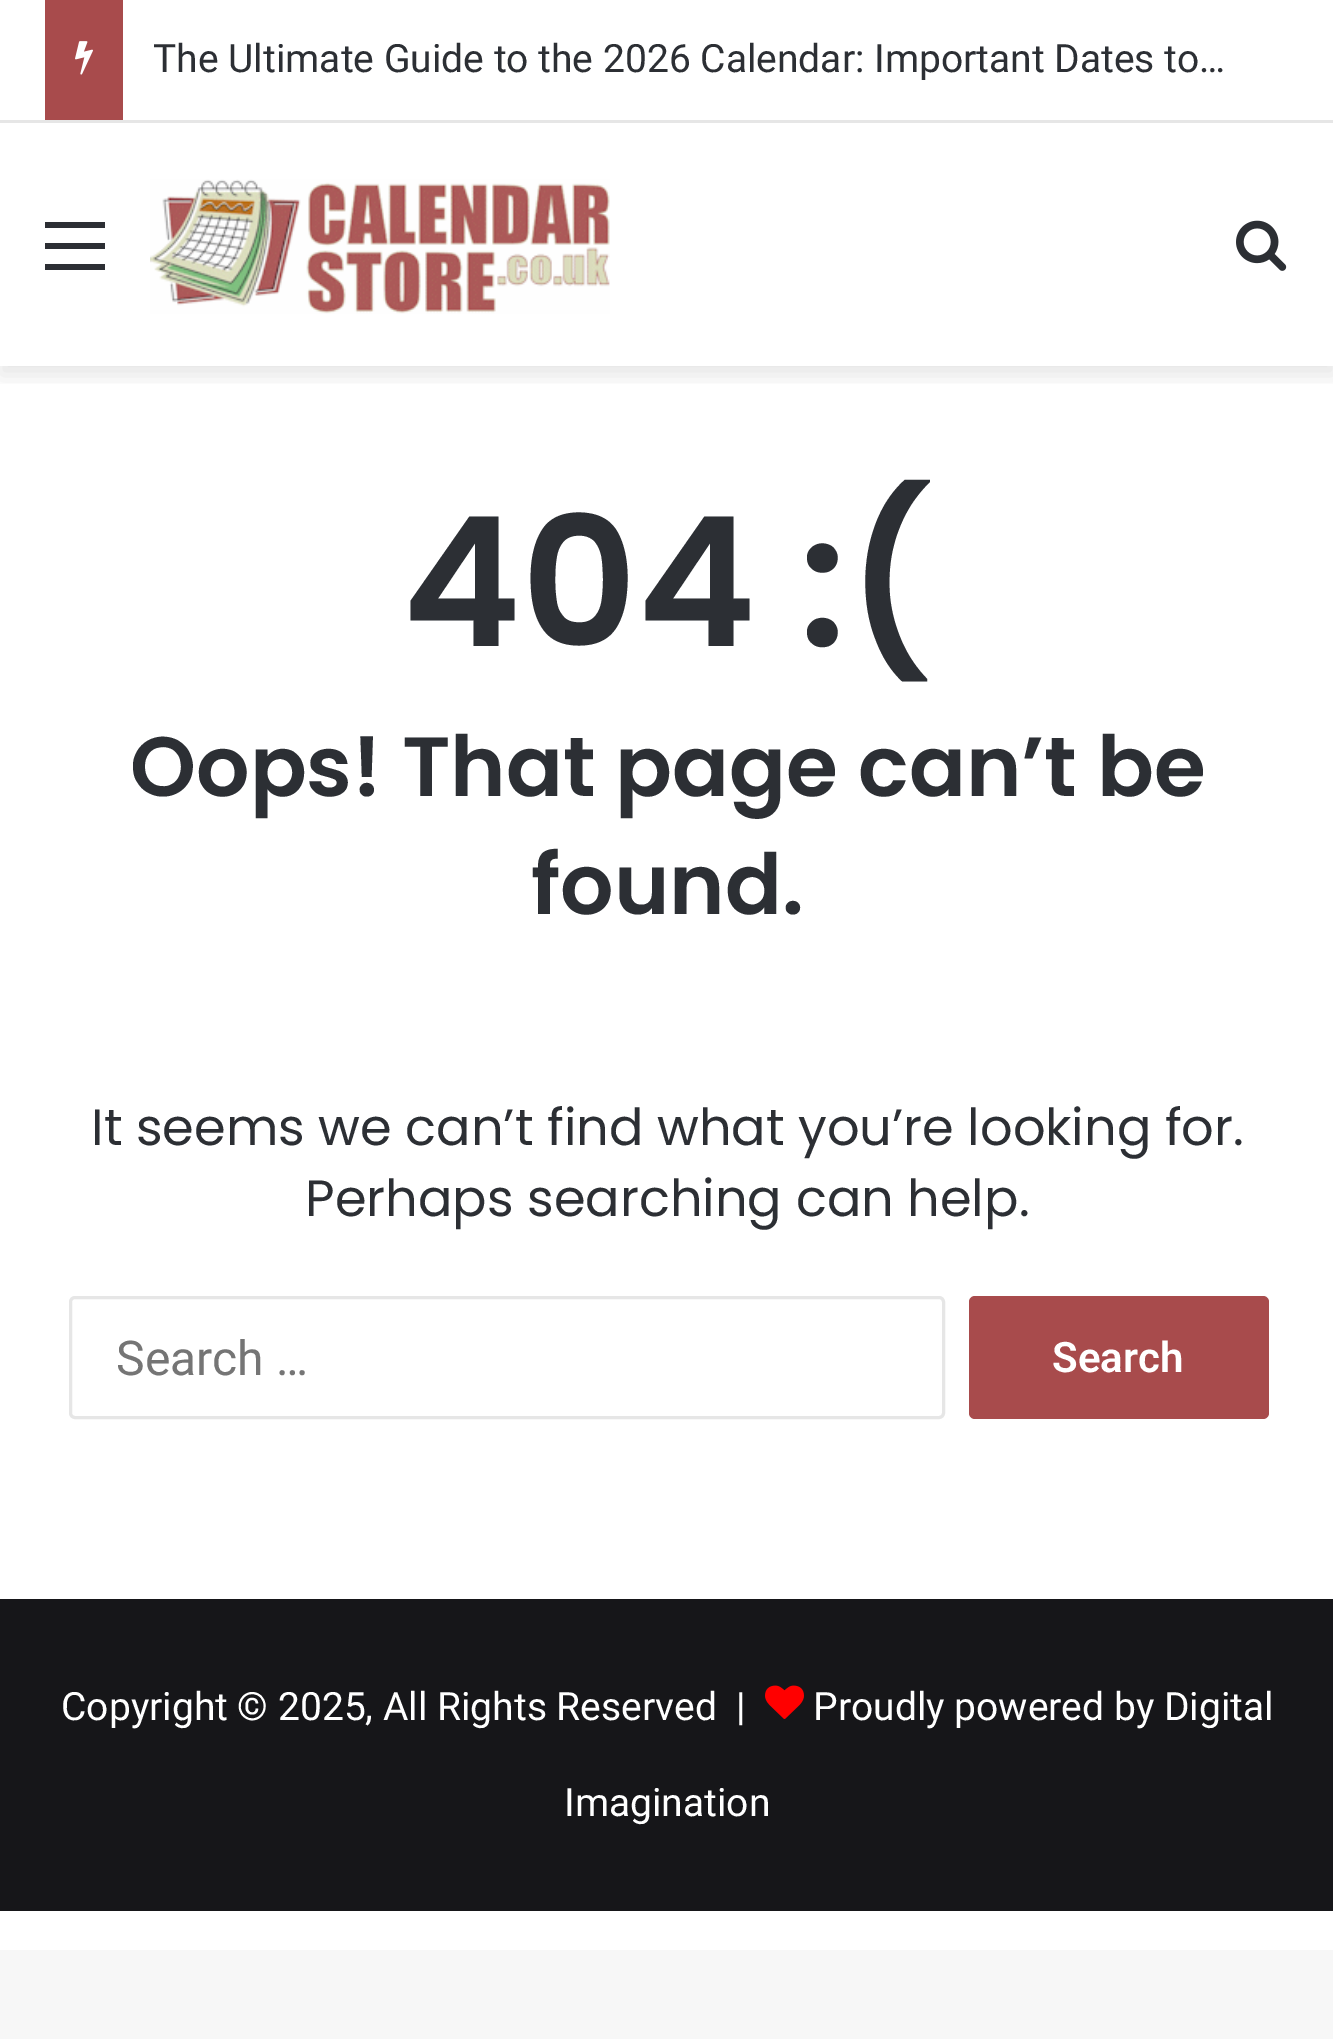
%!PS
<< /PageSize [1333 2039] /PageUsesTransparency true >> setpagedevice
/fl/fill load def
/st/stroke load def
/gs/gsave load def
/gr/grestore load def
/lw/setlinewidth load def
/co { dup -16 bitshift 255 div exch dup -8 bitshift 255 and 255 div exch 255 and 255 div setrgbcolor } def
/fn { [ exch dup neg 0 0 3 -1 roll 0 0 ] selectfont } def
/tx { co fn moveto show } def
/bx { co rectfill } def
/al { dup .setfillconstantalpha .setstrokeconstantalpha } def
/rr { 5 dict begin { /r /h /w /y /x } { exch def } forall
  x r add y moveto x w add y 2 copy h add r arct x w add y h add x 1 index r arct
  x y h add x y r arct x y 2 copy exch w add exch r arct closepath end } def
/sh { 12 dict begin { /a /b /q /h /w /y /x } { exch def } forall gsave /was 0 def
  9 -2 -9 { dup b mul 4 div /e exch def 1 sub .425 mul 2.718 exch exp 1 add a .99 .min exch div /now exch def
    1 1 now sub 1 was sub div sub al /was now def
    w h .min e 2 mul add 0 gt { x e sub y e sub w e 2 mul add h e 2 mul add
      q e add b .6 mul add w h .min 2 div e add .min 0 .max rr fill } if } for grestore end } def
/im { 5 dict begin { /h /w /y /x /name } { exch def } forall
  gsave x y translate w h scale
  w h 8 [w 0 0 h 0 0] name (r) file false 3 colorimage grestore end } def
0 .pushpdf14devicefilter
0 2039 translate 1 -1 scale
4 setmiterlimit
0 0 1333 2039 16#F7F7F7 bx
0 123 1333 1827 16#FFFFFF bx
gs
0 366 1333 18 rectclip
16#000000 co
0 132 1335 243 0 10.5 .1 sh
gr
0 0 1333 120 16#FFFFFF bx
0 120 1333 3 16#E6E6E6 bx
45 0 78 120 16#A84B4C bx
(media/1.raw) 75 41 18 34 im
45 243 60 6 16#2C2F34 bx
45 222 60 6 16#2C2F34 bx
45 264 60 6 16#2C2F34 bx
(media/2.raw) 150 179 460 135 im
(media/3.raw) 1236 220 51 51 im
16#E6E6E6 co
3 lw
70.5 1297.5 873 120 4.5 rr st
16#A84B4C co
969 1296 300 123 6 rr fl
0 1599 1333 312 16#161619 bx
(media/4.raw) 765 1685 39 34 im
(The Ultimate Guide to the 2026 Calendar: Important Dates to…) 153 72 /Roboto-Regular 39 16#2C2F34 tx
(404 :\() 402 646 /Poppins-SemiBold 180 16#2C2F34 tx
(Oops! That page can’t be) 130 796 /Poppins-SemiBold 84 16#2C2F34 tx
(found.) 531 914 /Poppins-SemiBold 84 16#2C2F34 tx
(It seems we can’t find what you’re looking for.) 91 1145 /Poppins-Regular 51 16#2C2F34 tx
(Perhaps searching can help.) 305 1216 /Poppins-Regular 51 16#2C2F34 tx
(Search …) 116 1375 /Roboto-Regular 48 16#757575 tx
(Search) 1052 1372 /Roboto-SemiBold 42 16#FFFFFF tx
(Copyright © 2025, All Rights Reserved  |) 61 1720 /Roboto-Regular 39 16#FFFFFF tx
(Proudly powered by Digital) 813 1720 /Roboto-Regular 39 16#FFFFFF tx
(Imagination) 564 1816 /Roboto-Regular 39 16#FFFFFF tx
.poppdf14devicefilter showpage
